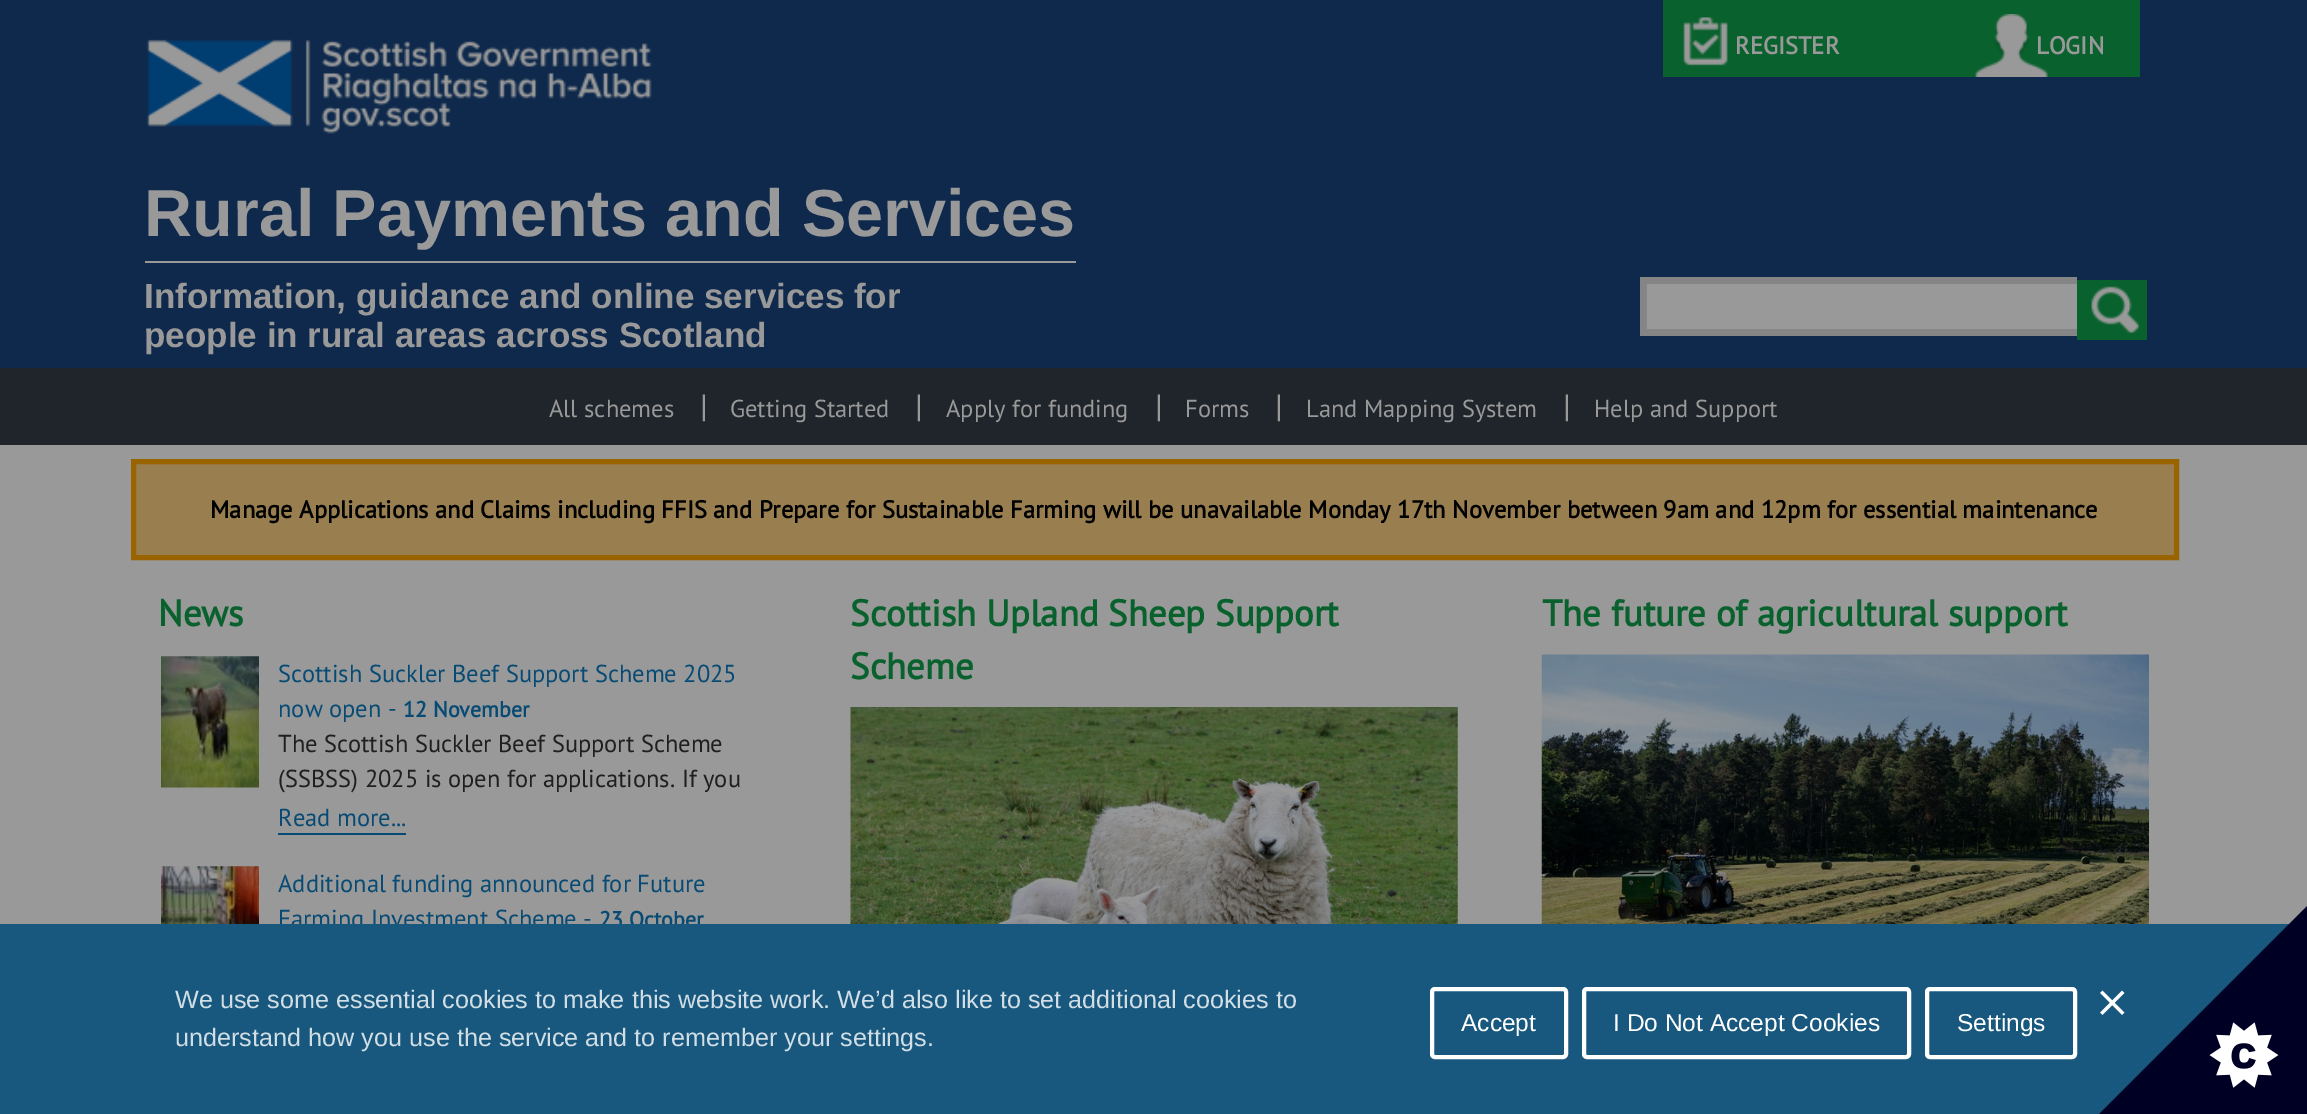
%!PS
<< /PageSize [2307 1114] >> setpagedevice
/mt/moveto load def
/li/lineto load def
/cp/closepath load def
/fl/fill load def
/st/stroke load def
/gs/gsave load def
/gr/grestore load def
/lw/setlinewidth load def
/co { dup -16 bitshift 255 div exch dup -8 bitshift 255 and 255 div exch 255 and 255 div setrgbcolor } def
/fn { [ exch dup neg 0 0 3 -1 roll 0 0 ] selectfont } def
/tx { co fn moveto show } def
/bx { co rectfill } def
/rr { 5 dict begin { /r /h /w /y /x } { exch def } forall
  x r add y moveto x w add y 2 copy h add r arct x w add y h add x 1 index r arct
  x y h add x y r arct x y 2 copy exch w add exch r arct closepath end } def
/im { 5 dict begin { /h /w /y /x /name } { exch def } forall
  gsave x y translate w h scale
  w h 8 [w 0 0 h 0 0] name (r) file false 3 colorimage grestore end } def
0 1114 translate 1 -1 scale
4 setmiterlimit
0 0 2307 1114 16#999999 bx
0 0 2307 368 16#0E294C bx
(media/1.raw) 146 39 506 95 im
1663 0 477 77 16#09612D bx
(media/2.raw) 1683 17 45 49 im
(media/3.raw) 1975 14 73 63 im
145 261 931 2 16#999999 bx
1647 284 430 45 16#999999 bx
1640 277 437 7 16#858585 bx
1640 329 437 7 16#858585 bx
1640 277 7 59 16#858585 bx
2077 280 70 60 16#09612D bx
(media/4.raw) 2091 286 48 47 im
0 368 2307 77 16#1F252B bx
16#997F50 co
133.5 461.5 mt 2176.5 461.5 li 2176.5 557.5 li 133.5 557.5 li cp gs fl gr
16#996300 co
5 lw
st
(media/5.raw) 161 656 98 132 im
278 833 128 2 16#074B74 bx
(media/6.raw) 161 866 98 58 im
(media/7.raw) 850 707 608 217 im
(media/8.raw) 1541 654 608 270 im
(REGISTER) 1735 54 /PTSans-Bold 24.5 16#999999 tx
(LOGIN) 2036 54 /PTSans-Bold 24.5 16#999999 tx
(Rural Payments and Services) 144 236 /LiberationSans-Bold 66.5 16#999999 tx
(Information, guidance and online services for) 144 308 /LiberationSans-Bold 35 16#999999 tx
(people in rural areas across Scotland) 144 347 /LiberationSans-Bold 35 16#999999 tx
(All schemes) 549 417 /PTSans-Regular 24.5 16#999999 tx
(|) 700 417 /PTSans-Regular 32 16#999999 tx
(Getting Started) 730 417 /PTSans-Regular 24.5 16#999999 tx
(|) 915 417 /PTSans-Regular 32 16#999999 tx
(Apply for funding) 946 417 /PTSans-Regular 24.5 16#999999 tx
(|) 1155 417 /PTSans-Regular 32 16#999999 tx
(Forms) 1185 417 /PTSans-Regular 24.5 16#999999 tx
(|) 1275 417 /PTSans-Regular 32 16#999999 tx
(Land Mapping System) 1306 417 /PTSans-Regular 24.5 16#999999 tx
(|) 1563 417 /PTSans-Regular 32 16#999999 tx
(Help and Support) 1594 417 /PTSans-Regular 24.5 16#999999 tx
(Manage Applications and Claims including FFIS and Prepare for Sustainable Farming will be unavailable Monday 17th November between 9am and 12pm for essential maintenance) 210 518 /PTSans-Bold 24.5 16#000000 tx
(News) 158 626 /PTSans-Bold 36.75 16#09612D tx
(Scottish Suckler Beef Support Scheme 2025) 278 682 /PTSans-Regular 24.5 16#074B74 tx
(now open -) 278 717 /PTSans-Regular 24.5 16#074B74 tx
(12 November) 403 717 /PTSans-Bold 22 16#074B74 tx
(The Scottish Suckler Beef Support Scheme) 278 752 /PTSans-Regular 24.5 16#1F1F1F tx
(\(SSBSS\) 2025 is open for applications. If you) 278 787 /PTSans-Regular 24.5 16#1F1F1F tx
(Read more...) 278 826 /PTSans-Regular 24.5 16#074B74 tx
(Additional funding announced for Future) 278 892 /PTSans-Regular 24.5 16#074B74 tx
(Farming Investment Scheme -) 278 927 /PTSans-Regular 24.5 16#074B74 tx
(23 October) 599 927 /PTSans-Bold 22 16#074B74 tx
(Scottish Upland Sheep Support) 850 626 /PTSans-Bold 36.75 16#09612D tx
(Scheme) 850 679 /PTSans-Bold 36.75 16#09612D tx
(The future of agricultural support) 1542 626 /PTSans-Bold 36.75 16#09612D tx
0 924 2289 190 16#18587E bx
(We use some essential cookies to make this website work. We’d also like to set additional cookies to) 175 1008 /LiberationSans-Regular 25.2 16#D1DEE5 tx
(understand how you use the service and to remember your settings.) 175 1046 /LiberationSans-Regular 25.2 16#D1DEE5 tx
(media/9.raw) 2100 990 25 25 im
16#FFFFFF co
4 lw
1432 989 134 68 3 rr st
(Accept) 1461 1031 /LiberationSans-Regular 24.5 16#FFFFFF tx
1584 989 325 68 3 rr st
(I Do Not Accept Cookies) 1613 1031 /LiberationSans-Regular 24.5 16#FFFFFF tx
1927 989 148 68 3 rr st
(Settings) 1957 1031 /LiberationSans-Regular 24.5 16#FFFFFF tx
(media/10.raw) 2099 906 208 208 im
showpage
